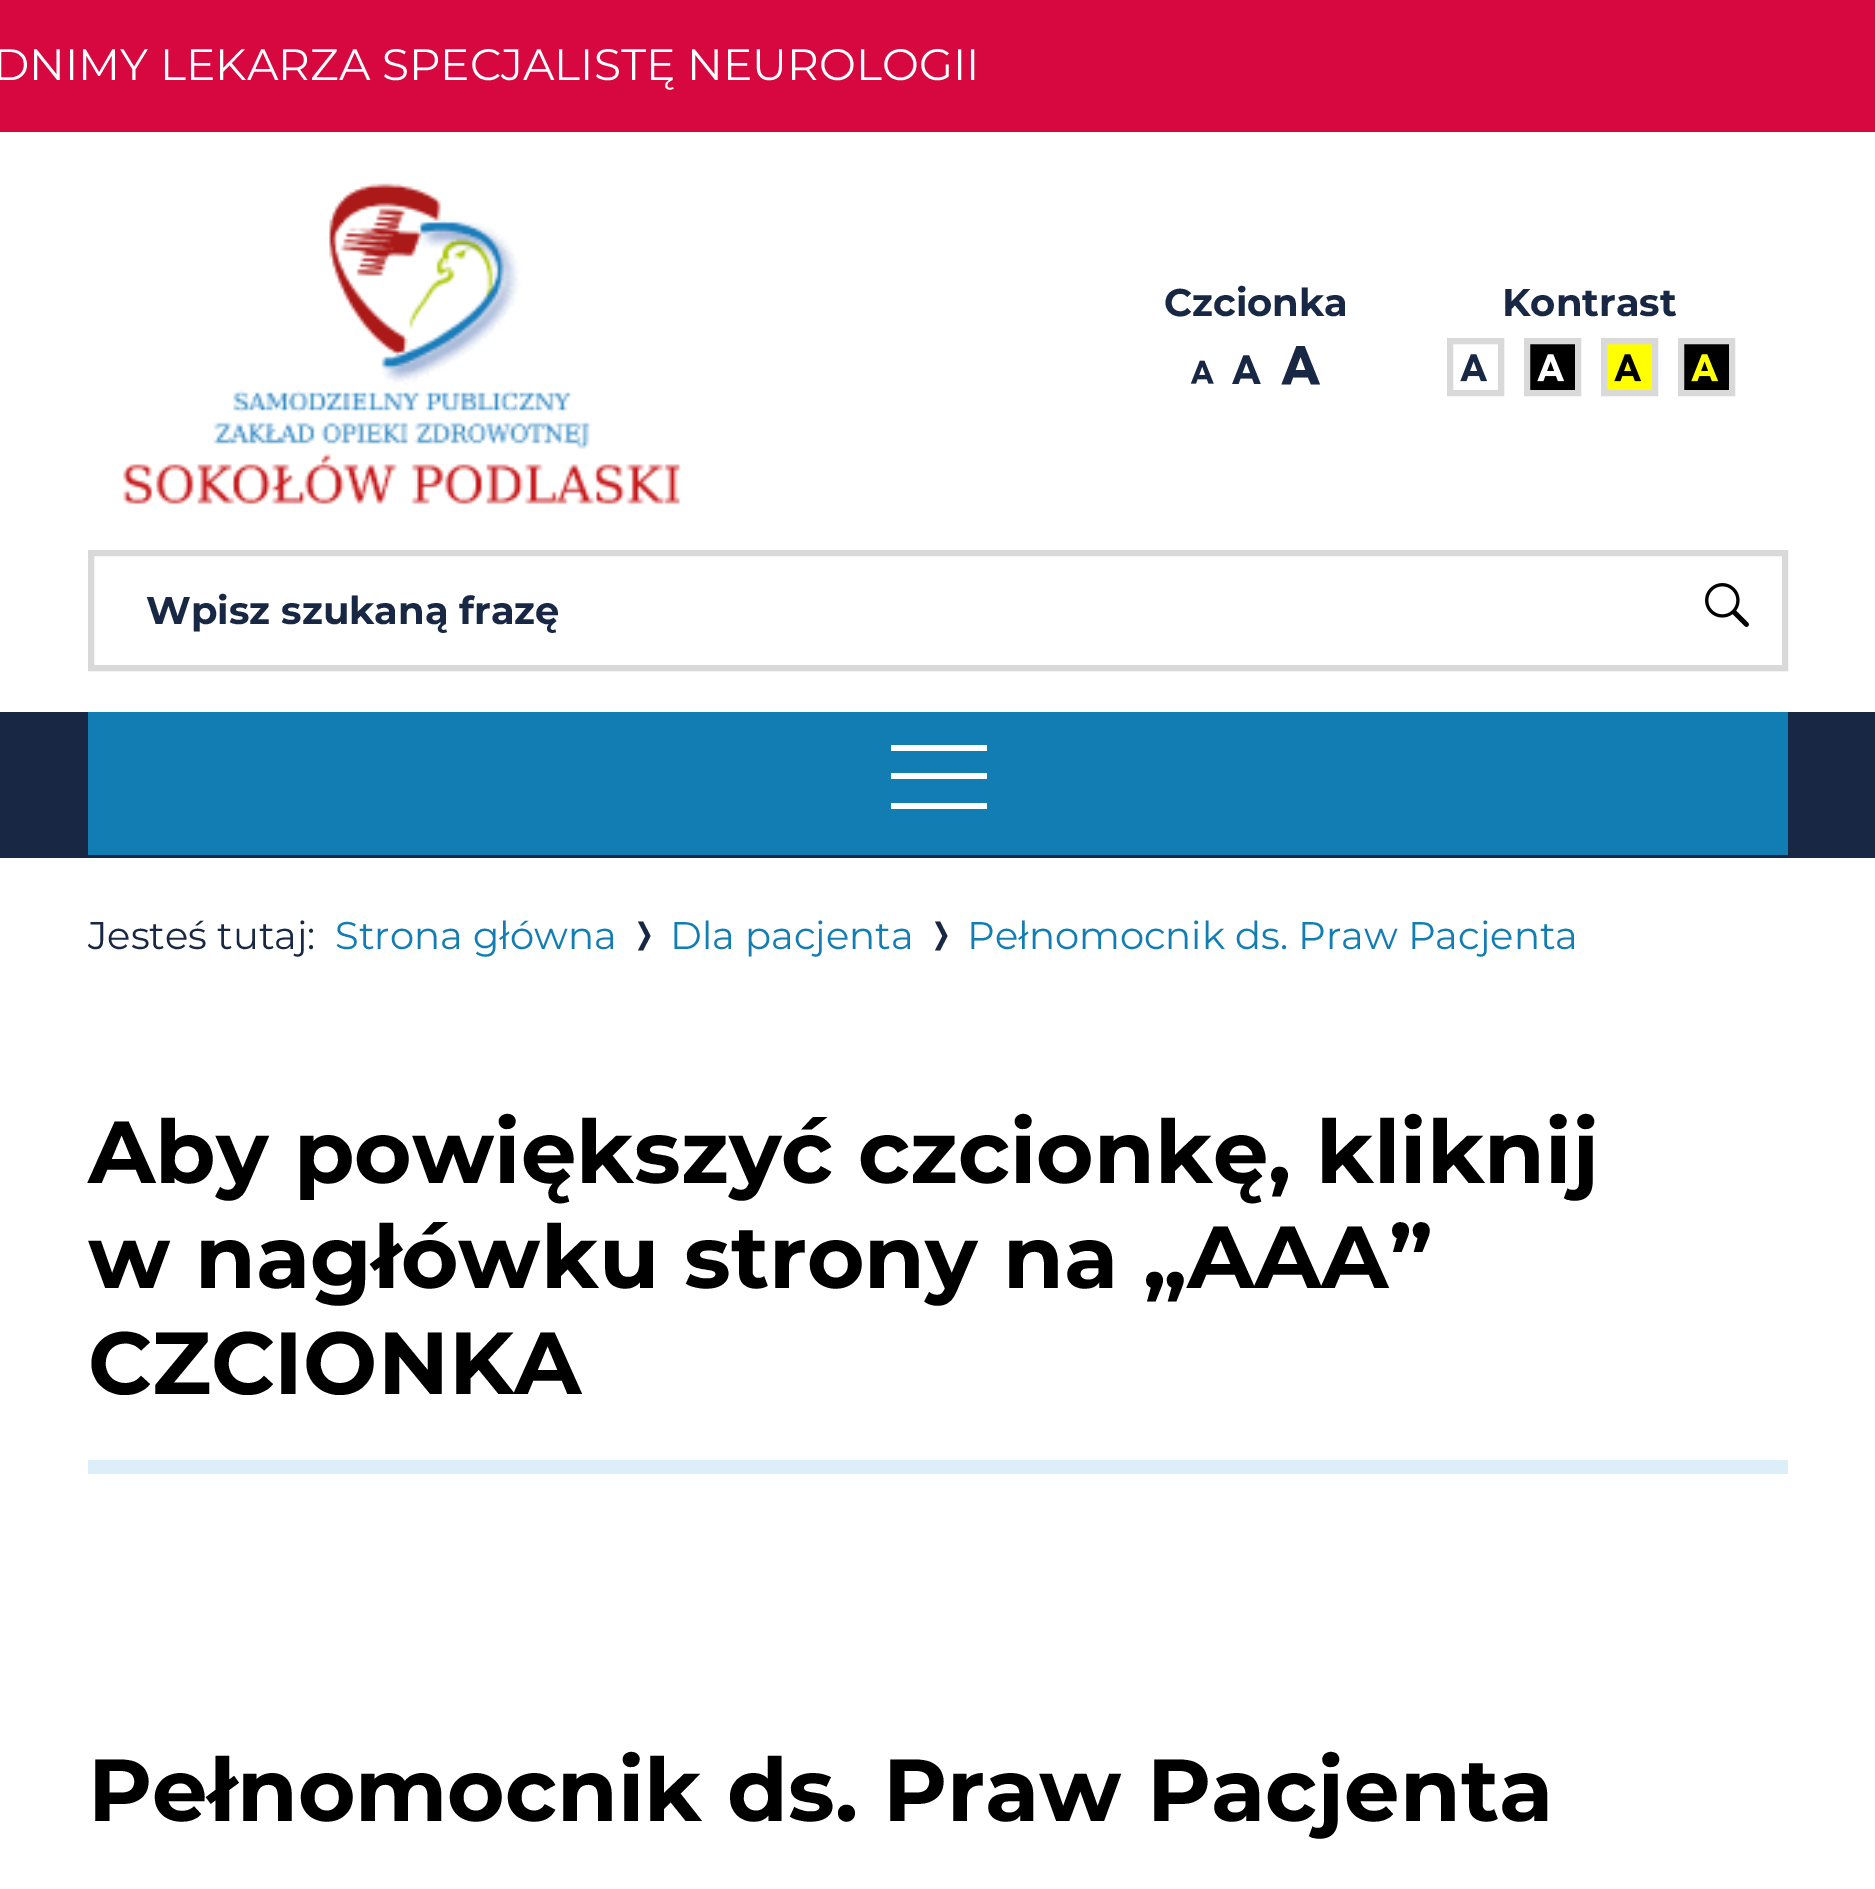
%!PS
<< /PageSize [1875 1889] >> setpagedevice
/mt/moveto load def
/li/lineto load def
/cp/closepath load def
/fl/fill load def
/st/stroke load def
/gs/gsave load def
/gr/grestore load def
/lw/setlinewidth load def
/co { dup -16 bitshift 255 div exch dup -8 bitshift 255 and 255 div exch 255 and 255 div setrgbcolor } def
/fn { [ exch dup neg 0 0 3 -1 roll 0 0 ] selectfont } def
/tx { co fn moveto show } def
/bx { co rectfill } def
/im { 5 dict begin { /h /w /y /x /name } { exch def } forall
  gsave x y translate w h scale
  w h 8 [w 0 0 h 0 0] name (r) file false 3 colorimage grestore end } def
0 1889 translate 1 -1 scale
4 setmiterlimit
0 0 1875 1889 16#FFFFFF bx
0 0 1875 132 16#D6083F bx
(media/1.raw) 123 183 558 322 im
(media/2.raw) 1190 360 24 24 im
(media/3.raw) 1232 355 29 29 im
16#182844 co
1300.5 356.5 mt 1305.5 370 li 1295.5 370 li cp 1311 384.5 mt 1320 384.5 li 1304.5 346 li 1296.5 346 li 1281.5 384.5 li 1290.5 384.5 li 1293 377.5 li 1308 377.5 li cp fl
16#D9D9D9 co
6 lw
1450 341 51 52 rectstroke
(media/4.raw) 1460 354 27 28 im
16#000000 co
1527 341 mt 1578 341 li 1578 393 li 1527 393 li cp gs fl gr
16#D9D9D9 co
st
(media/5.raw) 1537 354 27 28 im
16#FFFF00 co
1604 341 mt 1655 341 li 1655 393 li 1604 393 li cp gs fl gr
16#D9D9D9 co
st
(media/6.raw) 1614 354 27 28 im
16#000000 co
1681 341 mt 1732 341 li 1732 393 li 1681 393 li cp gs fl gr
16#D9D9D9 co
st
(media/7.raw) 1691 354 27 28 im
91 553 1694 115 rectstroke
(media/8.raw) 1705 583 44 44 im
0 712 1875 146 16#182844 bx
88 712 1700 143 16#127DB2 bx
891 745 96 6 16#FFFFFF bx
891 773 96 6 16#FFFFFF bx
891 803 96 6 16#FFFFFF bx
16#182844 co
650.5 936 mt 643 921.5 li 638 921.5 li 645.5 936 li 638 950.5 li 643 950.5 li cp fl
947.5 936 mt 940 921.5 li 935 921.5 li 942.5 936 li 935 950.5 li 940 950.5 li cp fl
88 1460 1700 14 16#DCEEF7 bx
(DNIMY LEKARZA SPECJALISTĘ NEUROLOGII) -7 80 /Montserrat-Regular 44 16#FFFFFF tx
(Czcionka) 1164 316 /Montserrat-Bold 38.5 16#182844 tx
(Kontrast) 1502 316 /Montserrat-Bold 38.5 16#182844 tx
(Wpisz szukaną frazę) 146 624 /Montserrat-Bold 38.5 16#182844 tx
(Jesteś tutaj:) 88 949 /Montserrat-Regular 38.5 16#182844 tx
(Strona główna) 335 949 /Montserrat-Regular 38.5 16#127DB2 tx
(Dla pacjenta) 670 949 /Montserrat-Regular 38.5 16#127DB2 tx
(Pełnomocnik ds. Praw Pacjenta) 967 949 /Montserrat-Regular 38.5 16#127DB2 tx
(Aby powiększyć czcionkę, kliknij) 88 1183 /Montserrat-Bold 88 16#000000 tx
(w nagłówku strony na „AAA”) 88 1288 /Montserrat-Bold 88 16#000000 tx
(CZCIONKA) 88 1394 /Montserrat-Bold 88 16#000000 tx
(Pełnomocnik ds. Praw Pacjenta) 88 1821 /Montserrat-Bold 88 16#000000 tx
showpage
